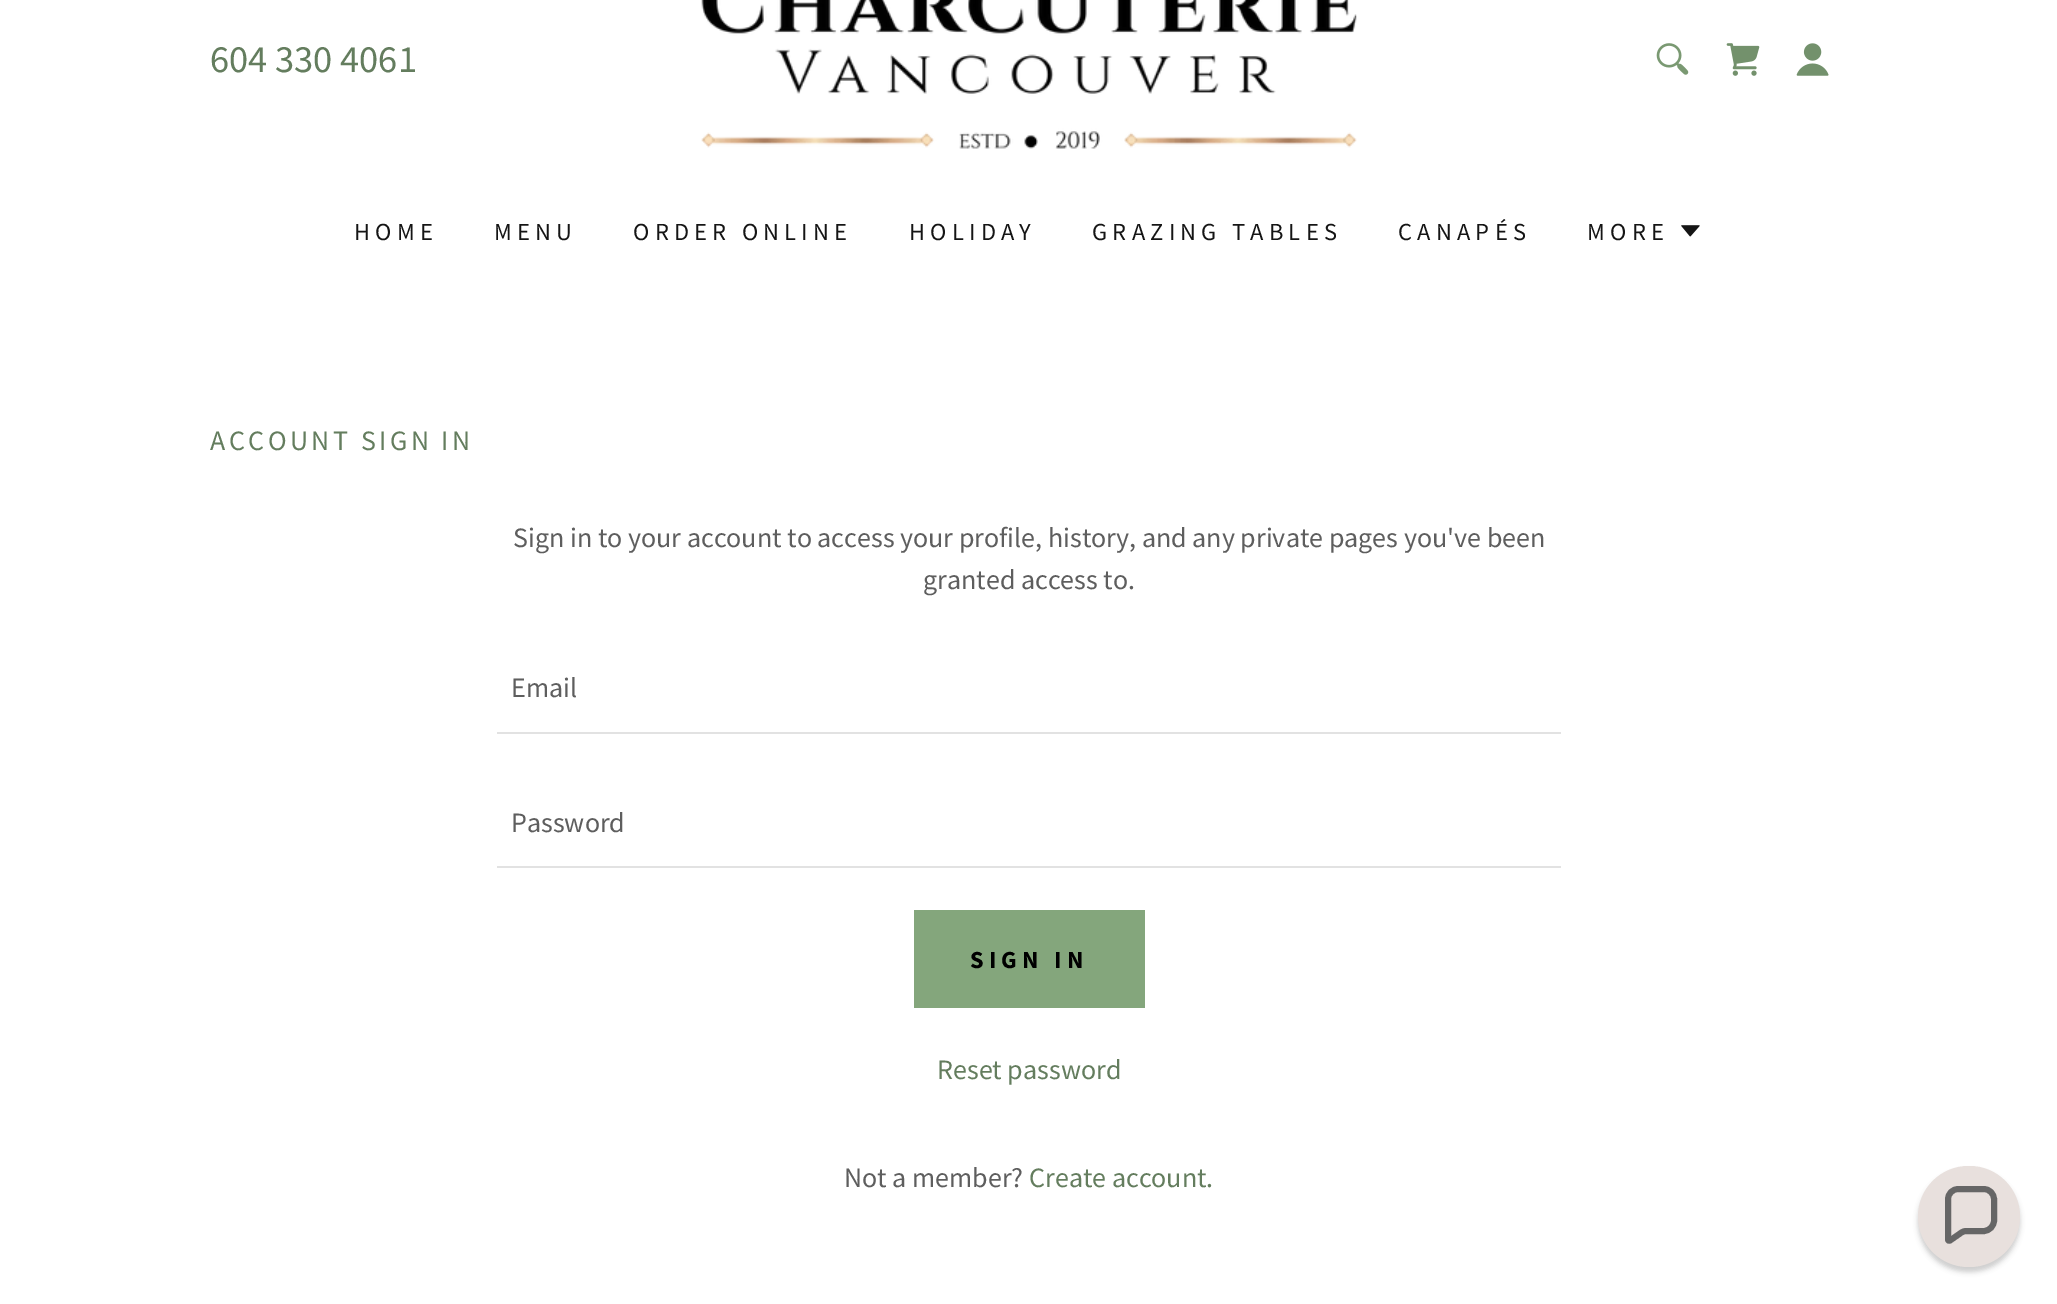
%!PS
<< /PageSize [2057 1304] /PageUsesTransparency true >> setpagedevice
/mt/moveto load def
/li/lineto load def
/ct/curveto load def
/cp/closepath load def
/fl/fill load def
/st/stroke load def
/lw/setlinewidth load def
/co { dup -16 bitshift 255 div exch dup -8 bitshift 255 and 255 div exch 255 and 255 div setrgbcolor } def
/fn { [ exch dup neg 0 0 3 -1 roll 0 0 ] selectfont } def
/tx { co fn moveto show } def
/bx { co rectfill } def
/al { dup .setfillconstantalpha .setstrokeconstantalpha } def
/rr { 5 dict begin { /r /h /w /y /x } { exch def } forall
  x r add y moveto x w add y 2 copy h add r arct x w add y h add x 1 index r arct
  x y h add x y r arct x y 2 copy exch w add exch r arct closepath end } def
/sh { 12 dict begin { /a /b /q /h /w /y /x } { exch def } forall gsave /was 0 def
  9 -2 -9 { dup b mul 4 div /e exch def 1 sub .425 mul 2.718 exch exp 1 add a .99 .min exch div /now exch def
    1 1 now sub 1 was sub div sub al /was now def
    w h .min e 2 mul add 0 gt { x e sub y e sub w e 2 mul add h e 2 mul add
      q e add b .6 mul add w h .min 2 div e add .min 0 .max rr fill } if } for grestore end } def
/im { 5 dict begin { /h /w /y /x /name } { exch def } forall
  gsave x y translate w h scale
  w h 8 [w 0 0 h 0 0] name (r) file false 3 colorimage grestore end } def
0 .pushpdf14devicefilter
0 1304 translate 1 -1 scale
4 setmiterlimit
0 0 2057 1304 16#FFFFFF bx
(media/1.raw) 701 0 656 149 im
(media/2.raw) 1656 43 33 32 im
(media/3.raw) 1726 43 34 33 im
(media/4.raw) 1796 43 33 33 im
(media/5.raw) 1681 225 19 12 im
497 732 1064 2 16#E2E2E2 bx
497 866 1064 2 16#E2E2E2 bx
914 910 231 98 16#84A67C bx
16#0D0D0D co
1918 1171 102 101 50.5 2.5 .2 sh
16#E8E0DD co
1918 1166 102 101 50.5 rr fl
16#666666 co
5.9 lw
1983.5 1189 mt 1958.5 1189 li 1952.5 1189 1948 1193.5 1948 1199.5 ct 1948 1239.5 li 1948 1240.5 1949 1241 1950 1240.5 ct 1961.5 1232.5 li 1963 1231.5 1964.5 1231 1966.5 1231 ct 1983.5 1231 li 1989.5 1231 1994 1226 1994 1220.5 ct 1994 1199.5 li 1994 1193.5 1989.5 1189 1983.5 1189 ct cp st
(604 330 4061) 210 72 /SourceSansPro-Regular 38.5 16#647D5E tx
/SourceSansPro-Regular 24.5 fn
16#151515 co
354 240 mt 5.25 0 (HOME) ashow
494 240 mt 5.25 0 (MENU) ashow
633 240 mt 5.25 0 (ORDER ONLINE) ashow
909 240 mt 5.25 0 (HOLIDAY) ashow
1092 240 mt 5.25 0 (GRAZING TABLES) ashow
1398 240 mt 5.25 0 (CANAPÉS) ashow
1587 240 mt 5.25 0 (MORE) ashow
/SourceSansPro-Regular 28 fn
16#647D5E co
210 450 mt 3.5 0 (ACCOUNT SIGN IN) ashow
(Sign in to your account to access your profile, history, and any private pages you've been) 513 547 /SourceSansPro-Regular 28 16#5E5E5E tx
(granted access to.) 923 589 /SourceSansPro-Regular 28 16#5E5E5E tx
(Email) 511 697 /SourceSansPro-Regular 28 16#5E5E5E tx
(Password) 511 832 /SourceSansPro-Regular 28 16#5E5E5E tx
/SourceSansPro-Bold 24.5 fn
16#000000 co
970 968 mt 5.25 0 (SIGN IN) ashow
(Reset password) 937 1079 /SourceSansPro-Regular 28 16#647D5E tx
(Not a member?) 844 1187 /SourceSansPro-Regular 28 16#5E5E5E tx
(Create account.) 1029 1187 /SourceSansPro-Regular 28 16#647D5E tx
.poppdf14devicefilter showpage
